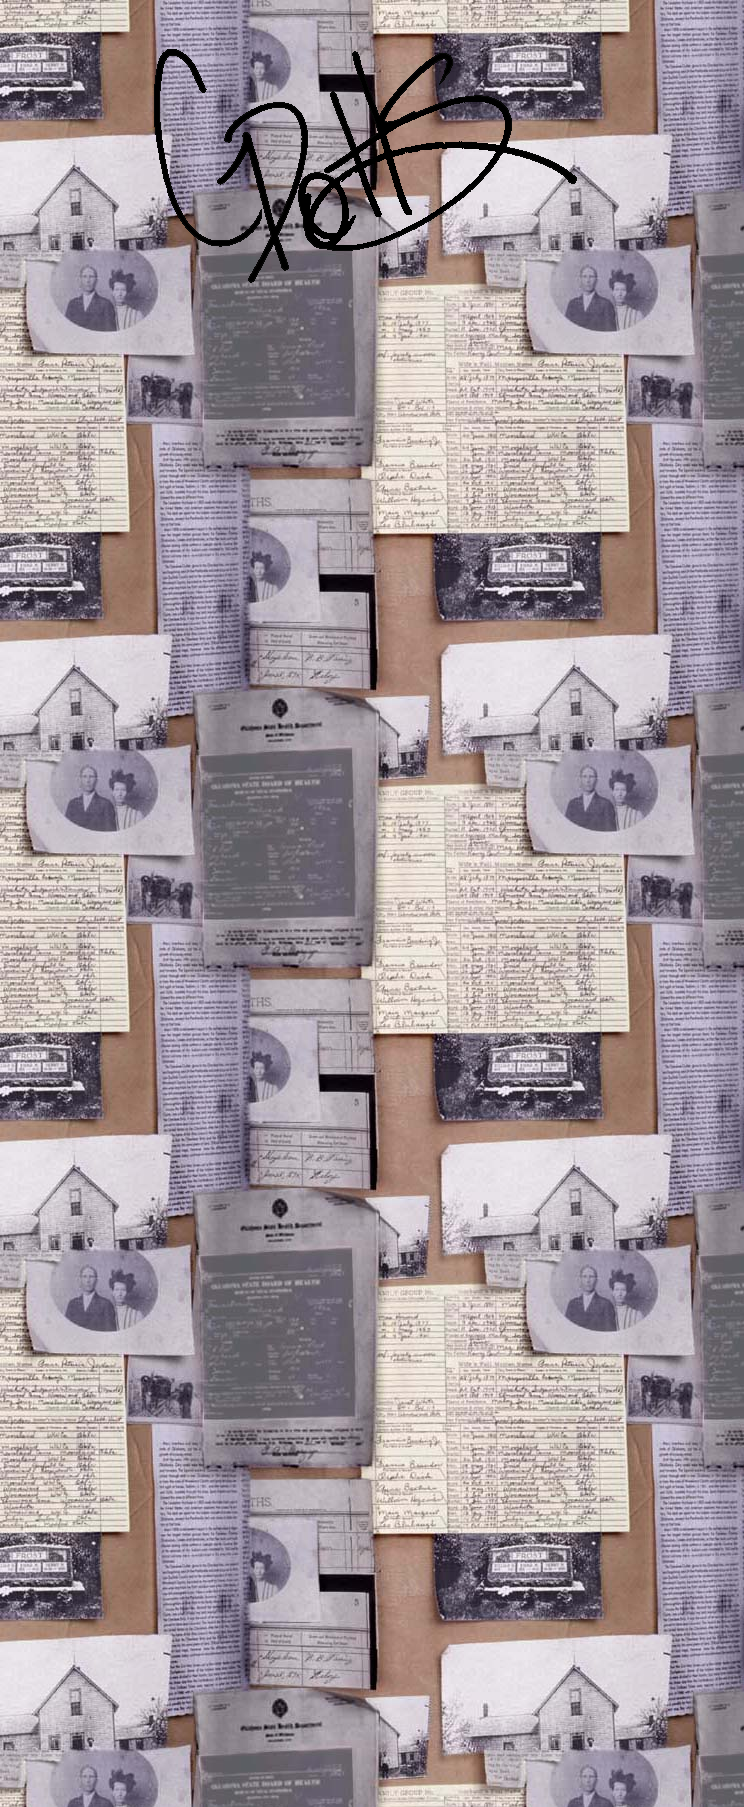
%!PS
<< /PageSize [744 1807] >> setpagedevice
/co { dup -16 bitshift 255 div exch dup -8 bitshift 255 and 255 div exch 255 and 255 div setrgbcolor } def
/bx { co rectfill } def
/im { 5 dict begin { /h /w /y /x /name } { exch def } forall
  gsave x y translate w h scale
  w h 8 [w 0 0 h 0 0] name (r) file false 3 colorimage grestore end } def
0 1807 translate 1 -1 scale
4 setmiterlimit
0 0 744 1807 16#FFFFFF bx
(media/1.raw) 0 0 744 1807 im
(media/2.raw) 154 49 423 234 im
showpage
